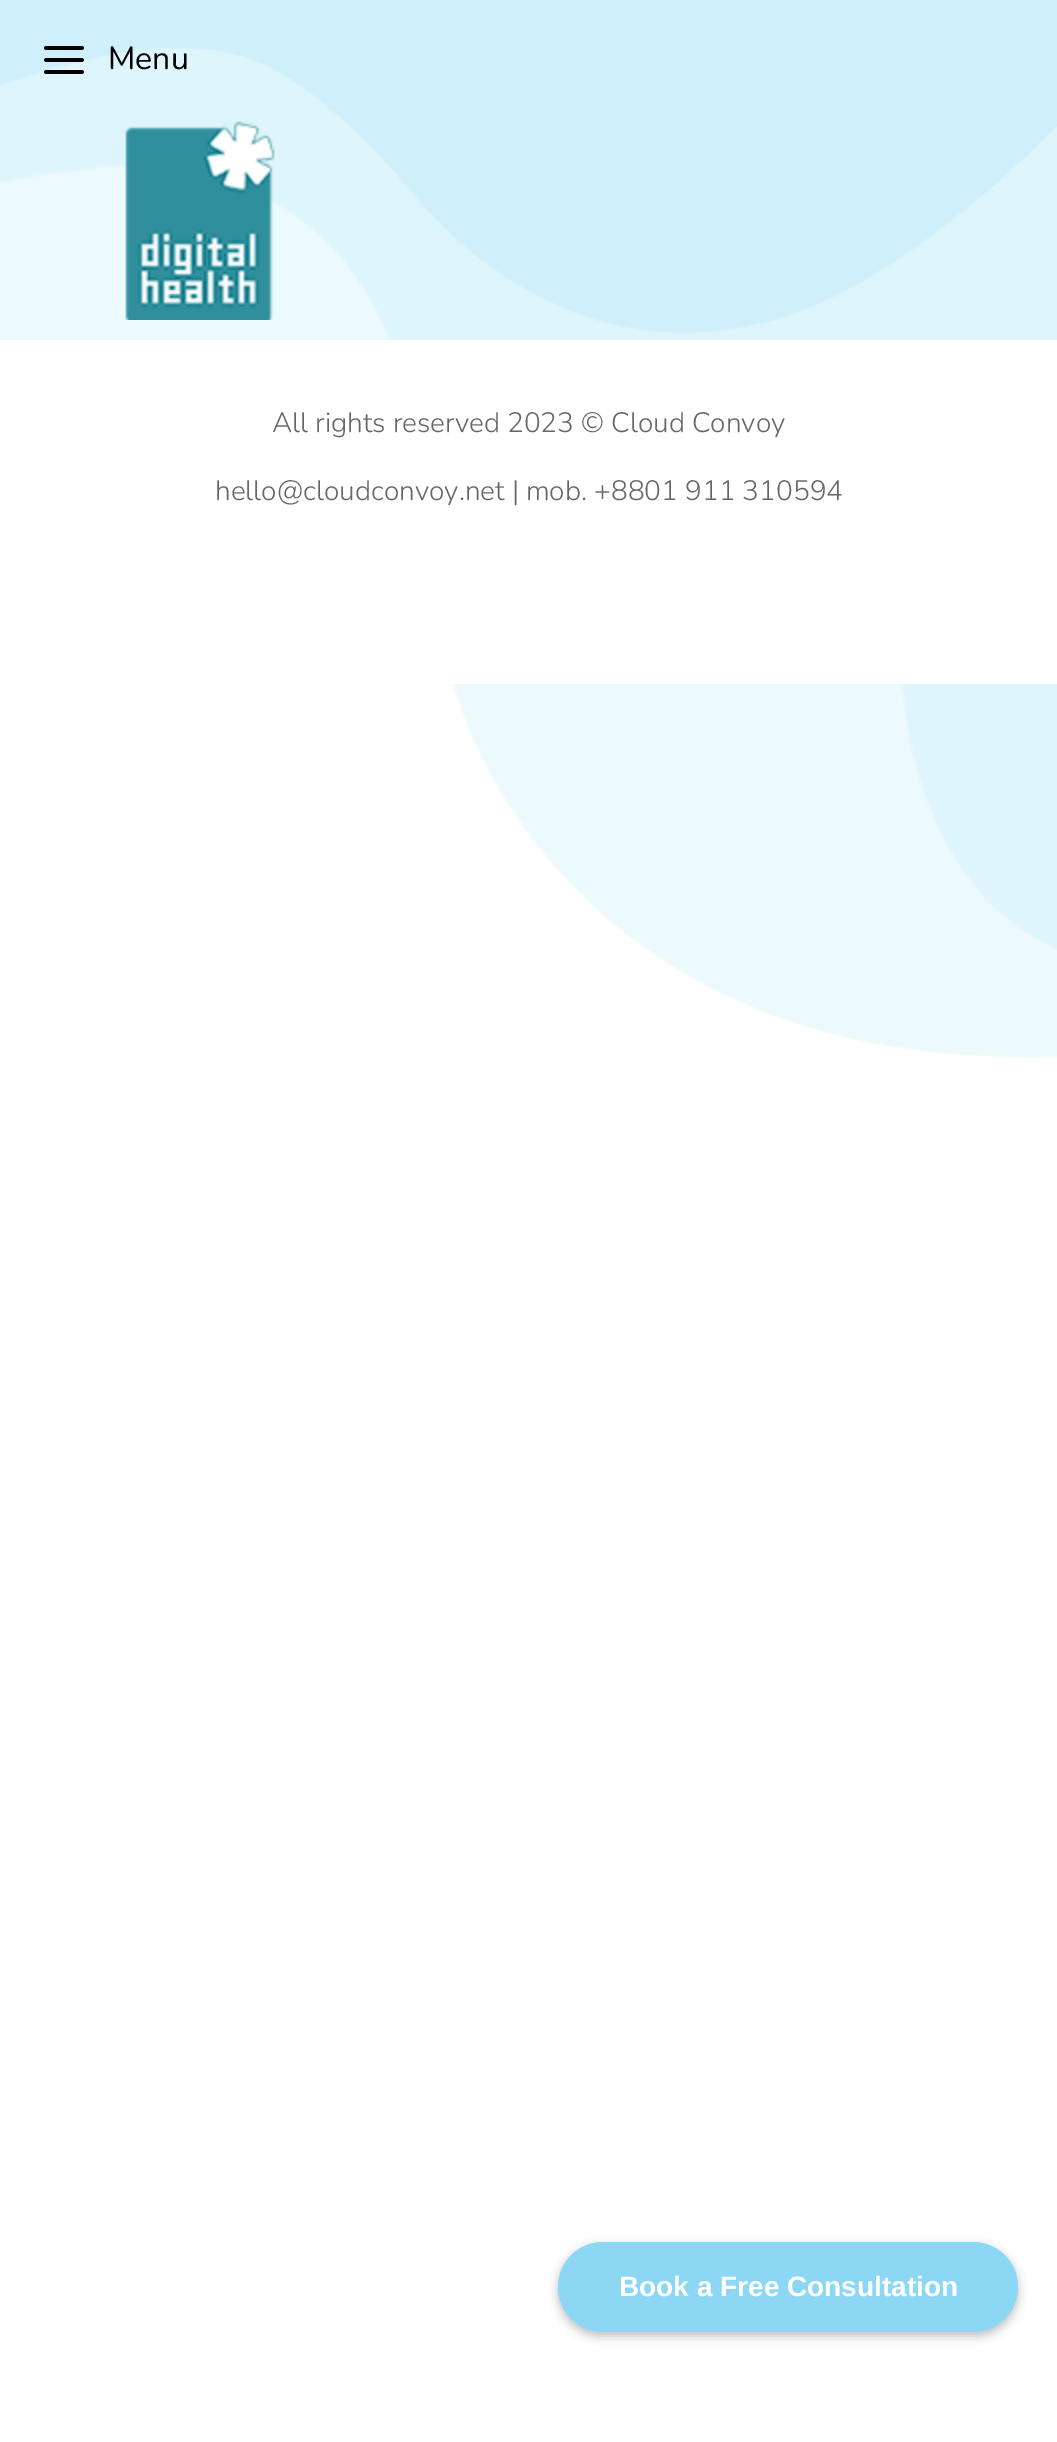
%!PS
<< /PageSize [1057 2442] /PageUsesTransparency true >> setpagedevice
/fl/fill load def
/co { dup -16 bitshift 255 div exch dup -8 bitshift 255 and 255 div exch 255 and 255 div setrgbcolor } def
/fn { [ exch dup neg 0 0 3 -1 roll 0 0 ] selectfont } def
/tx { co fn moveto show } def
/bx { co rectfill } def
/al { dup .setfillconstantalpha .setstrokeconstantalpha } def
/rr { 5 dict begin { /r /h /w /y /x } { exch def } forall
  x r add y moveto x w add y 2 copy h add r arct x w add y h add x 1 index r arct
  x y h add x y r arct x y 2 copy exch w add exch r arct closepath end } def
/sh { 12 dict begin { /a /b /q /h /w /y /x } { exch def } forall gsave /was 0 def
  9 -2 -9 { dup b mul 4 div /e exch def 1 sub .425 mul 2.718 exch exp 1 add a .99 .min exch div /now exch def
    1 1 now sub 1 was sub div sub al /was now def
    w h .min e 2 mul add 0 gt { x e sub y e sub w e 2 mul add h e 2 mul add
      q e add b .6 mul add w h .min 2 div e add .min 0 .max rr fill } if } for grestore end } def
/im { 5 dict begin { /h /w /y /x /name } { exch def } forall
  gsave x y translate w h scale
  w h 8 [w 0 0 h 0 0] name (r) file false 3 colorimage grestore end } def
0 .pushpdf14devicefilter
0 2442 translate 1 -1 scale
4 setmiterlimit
0 0 1057 2442 16#FFFFFF bx
(media/1.raw) 0 0 1057 1058 im
(media/2.raw) 44 46 40 28 im
(media/3.raw) 125 121 150 199 im
0 340 1057 344 16#FFFFFF bx
16#000000 co
558 2246 460 90 45 5 .25 sh
16#8BD7F4 co
558 2242 460 90 45 rr fl
(Menu) 108 69 /Nunito-Regular 32 16#000000 tx
(All rights reserved 2023 © Cloud Convoy) 272 432 /Nunito-Light 28 16#666666 tx
(hello@cloudconvoy.net | mob. +8801 911 310594) 215 500 /Nunito-Light 28 16#666666 tx
(Book a Free Consultation) 619 2296 /LiberationSans-Bold 28 16#FFFFFF tx
.poppdf14devicefilter showpage
